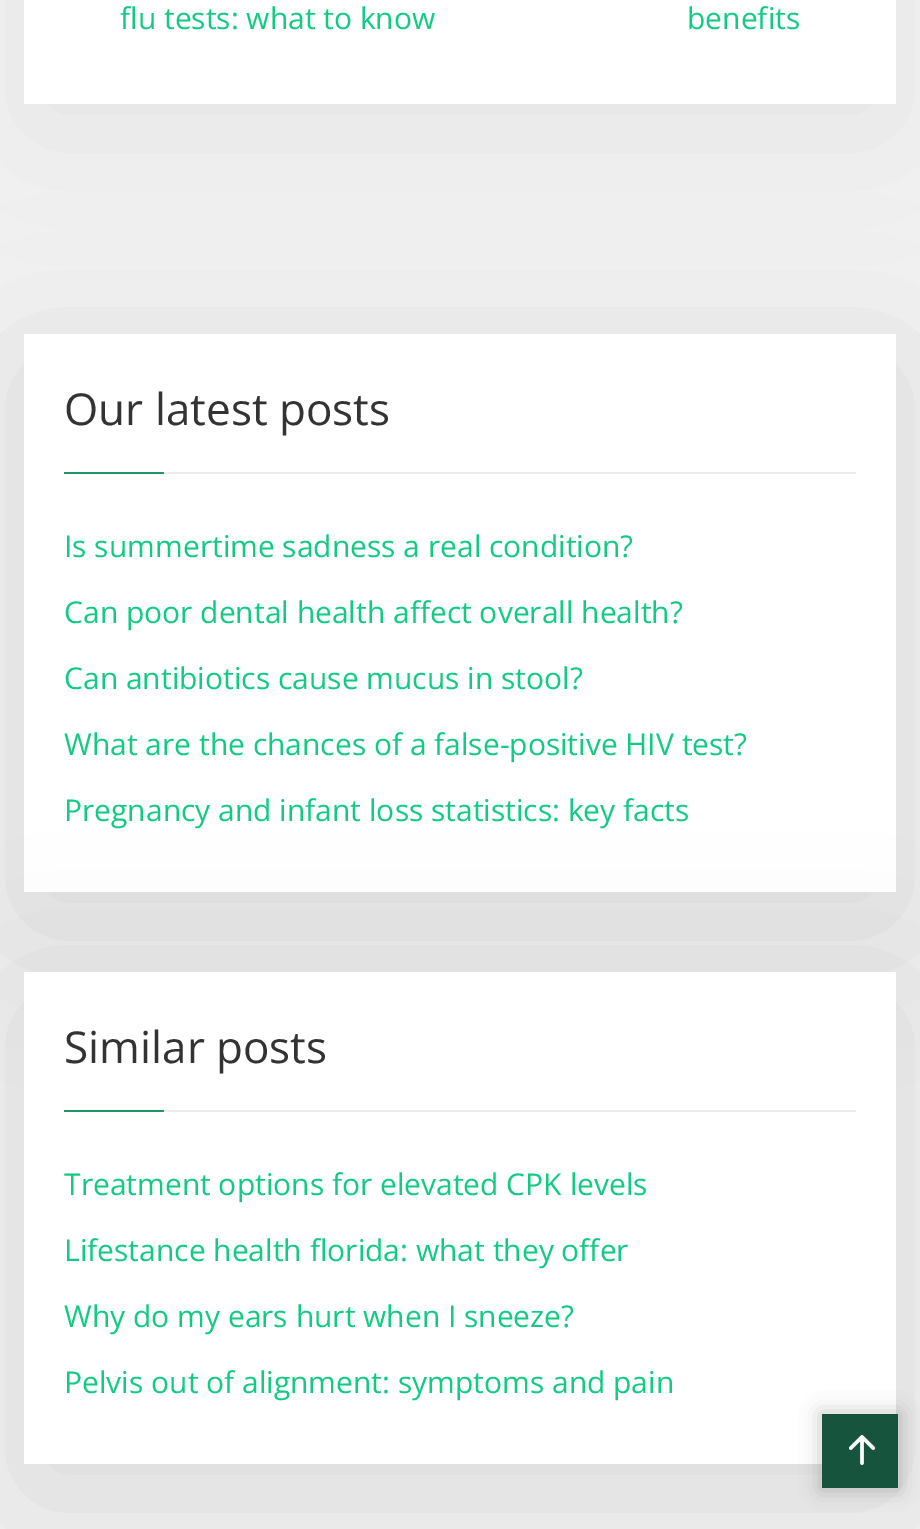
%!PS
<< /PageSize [920 1529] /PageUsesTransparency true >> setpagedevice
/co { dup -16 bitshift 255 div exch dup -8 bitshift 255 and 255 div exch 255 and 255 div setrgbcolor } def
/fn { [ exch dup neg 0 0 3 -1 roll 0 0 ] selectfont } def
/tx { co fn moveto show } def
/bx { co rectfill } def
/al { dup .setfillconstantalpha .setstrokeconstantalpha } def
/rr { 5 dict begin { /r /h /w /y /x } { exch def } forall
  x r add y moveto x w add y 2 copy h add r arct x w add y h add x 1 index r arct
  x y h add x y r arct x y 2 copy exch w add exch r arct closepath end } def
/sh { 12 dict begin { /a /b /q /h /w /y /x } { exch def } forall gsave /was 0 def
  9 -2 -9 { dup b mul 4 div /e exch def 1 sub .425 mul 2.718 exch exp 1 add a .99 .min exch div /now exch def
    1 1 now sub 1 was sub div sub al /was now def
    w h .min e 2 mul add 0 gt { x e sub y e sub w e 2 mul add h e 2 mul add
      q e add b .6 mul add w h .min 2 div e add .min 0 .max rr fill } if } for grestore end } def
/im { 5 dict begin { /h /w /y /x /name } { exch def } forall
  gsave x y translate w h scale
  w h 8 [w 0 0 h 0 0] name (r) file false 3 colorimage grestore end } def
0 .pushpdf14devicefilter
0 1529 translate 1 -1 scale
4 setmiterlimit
0 0 920 1529 16#F2F2F2 bx
16#000000 co
24 -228 872 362 0 76 .06 sh
24 0 872 104 16#FFFFFF bx
16#000000 co
24 364 872 558 0 76 .1 sh
24 334 872 558 16#FFFFFF bx
64 472 100 2 16#229467 bx
164 472 692 2 16#ECECEC bx
16#000000 co
24 1002 872 492 0 76 .1 sh
24 972 872 492 16#FFFFFF bx
64 1110 100 2 16#229467 bx
164 1110 692 2 16#ECECEC bx
16#000000 co
820 1412 80 78 0 10 .2 sh
822 1414 76 74 16#17543E bx
(media/1.raw) 848 1435 28 30 im
(flu tests: what to know) 120 29 /OpenSans-Regular 30 16#11CB82 tx
(benefits) 687 29 /OpenSans-Regular 30 16#11CB82 tx
(Our latest posts) 64 425 /OpenSans-Regular 44 16#333333 tx
(Is summertime sadness a real condition?) 64 557 /OpenSans-Regular 30 16#11CB82 tx
(Can poor dental health affect overall health?) 64 623 /OpenSans-Regular 30 16#11CB82 tx
(Can antibiotics cause mucus in stool?) 64 689 /OpenSans-Regular 30 16#11CB82 tx
(What are the chances of a false-positive HIV test?) 64 755 /OpenSans-Regular 30 16#11CB82 tx
(Pregnancy and infant loss statistics: key facts) 64 821 /OpenSans-Regular 30 16#11CB82 tx
(Similar posts) 64 1063 /OpenSans-Regular 44 16#333333 tx
(Treatment options for elevated CPK levels) 64 1195 /OpenSans-Regular 30 16#11CB82 tx
(Lifestance health florida: what they offer) 64 1261 /OpenSans-Regular 30 16#11CB82 tx
(Why do my ears hurt when I sneeze?) 64 1327 /OpenSans-Regular 30 16#11CB82 tx
(Pelvis out of alignment: symptoms and pain) 64 1393 /OpenSans-Regular 30 16#11CB82 tx
.poppdf14devicefilter showpage
